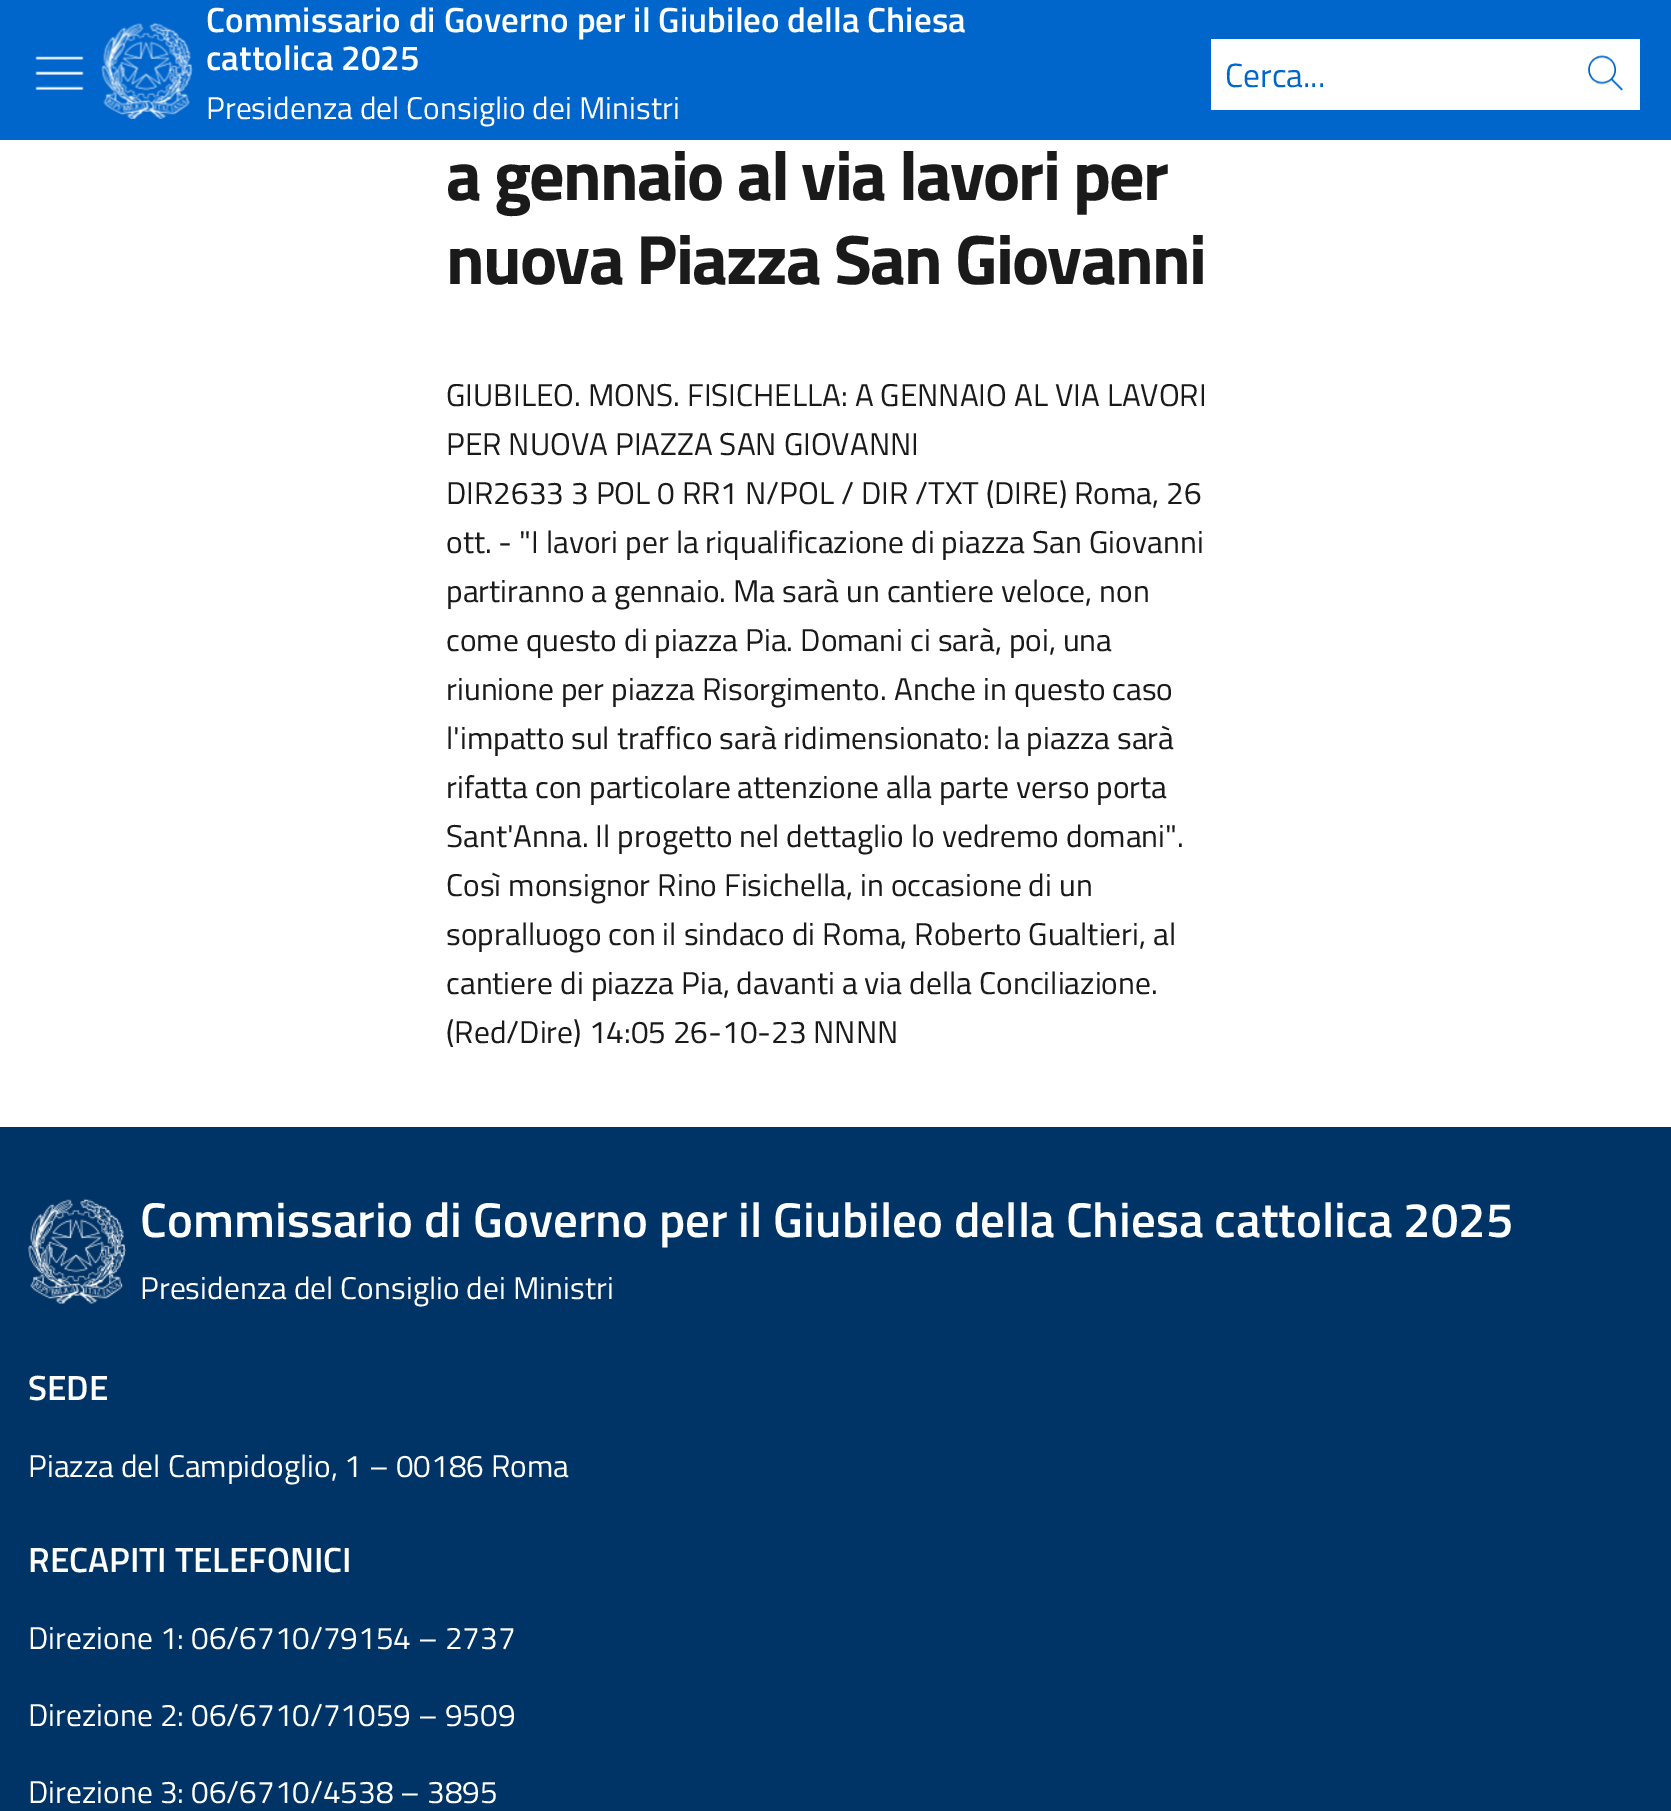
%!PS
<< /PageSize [1671 1811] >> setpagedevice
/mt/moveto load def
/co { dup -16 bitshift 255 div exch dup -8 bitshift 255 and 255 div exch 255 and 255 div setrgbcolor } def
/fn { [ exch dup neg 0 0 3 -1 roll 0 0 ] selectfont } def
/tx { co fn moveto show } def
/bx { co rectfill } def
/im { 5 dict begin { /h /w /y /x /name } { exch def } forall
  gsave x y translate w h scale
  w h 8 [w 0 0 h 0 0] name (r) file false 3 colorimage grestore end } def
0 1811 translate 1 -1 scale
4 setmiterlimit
0 0 1671 1811 16#FFFFFF bx
0 0 1671 140 16#0066CC bx
(media/1.raw) 35 56 49 34 im
(media/2.raw) 101 22 92 97 im
1211 39 429 71 16#FFFFFF bx
(media/3.raw) 1588 55 35 36 im
0 1127 1671 684 16#003366 bx
(media/4.raw) 28 1198 98 106 im
(Commissario di Governo per il Giubileo della Chiesa) 206 32 /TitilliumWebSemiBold-SemiBold 35 16#FFFFFF tx
(cattolica 2025) 206 70 /TitilliumWebSemiBold-SemiBold 35 16#FFFFFF tx
(Presidenza del Consiglio dei Ministri) 206 119 /TitilliumWeb-Regular 31.5 16#FFFFFF tx
(Cerca...) 1225 87 /TitilliumWeb-Regular 33.5 16#0066CC tx
/TitilliumWeb-Bold 70 fn
16#1A1A1A co
446 200 mt -1.75 0 (a gennaio al via lavori per) ashow
446 284 mt -1.75 0 (nuova Piazza San Giovanni) ashow
(GIUBILEO. MONS. FISICHELLA: A GENNAIO AL VIA LAVORI) 446 406 /TitilliumWeb-Regular 31.5 16#1A1A1A tx
(PER NUOVA PIAZZA SAN GIOVANNI) 446 455 /TitilliumWeb-Regular 31.5 16#1A1A1A tx
(DIR2633 3 POL 0 RR1 N/POL / DIR /TXT \(DIRE\) Roma, 26) 446 504 /TitilliumWeb-Regular 31.5 16#1A1A1A tx
(ott. - "I lavori per la riqualificazione di piazza San Giovanni) 446 553 /TitilliumWeb-Regular 31.5 16#1A1A1A tx
(partiranno a gennaio. Ma sarà un cantiere veloce, non) 446 602 /TitilliumWeb-Regular 31.5 16#1A1A1A tx
(come questo di piazza Pia. Domani ci sarà, poi, una) 446 651 /TitilliumWeb-Regular 31.5 16#1A1A1A tx
(riunione per piazza Risorgimento. Anche in questo caso) 446 700 /TitilliumWeb-Regular 31.5 16#1A1A1A tx
(l'impatto sul traffico sarà ridimensionato: la piazza sarà) 446 749 /TitilliumWeb-Regular 31.5 16#1A1A1A tx
(rifatta con particolare attenzione alla parte verso porta) 446 798 /TitilliumWeb-Regular 31.5 16#1A1A1A tx
(Sant'Anna. Il progetto nel dettaglio lo vedremo domani".) 446 847 /TitilliumWeb-Regular 31.5 16#1A1A1A tx
(Così monsignor Rino Fisichella, in occasione di un) 446 896 /TitilliumWeb-Regular 31.5 16#1A1A1A tx
(sopralluogo con il sindaco di Roma, Roberto Gualtieri, al) 446 945 /TitilliumWeb-Regular 31.5 16#1A1A1A tx
(cantiere di piazza Pia, davanti a via della Conciliazione.) 446 994 /TitilliumWeb-Regular 31.5 16#1A1A1A tx
(\(Red/Dire\) 14:05 26-10-23 NNNN) 446 1043 /TitilliumWeb-Regular 31.5 16#1A1A1A tx
(Commissario di Governo per il Giubileo della Chiesa cattolica 2025) 140 1237 /TitilliumWebSemiBold-SemiBold 49 16#FFFFFF tx
(Presidenza del Consiglio dei Ministri) 140 1299 /TitilliumWeb-Regular 31.5 16#FFFFFF tx
(SEDE) 28 1400 /TitilliumWebSemiBold-SemiBold 35 16#FFFFFF tx
(Piazza del Campidoglio, 1 – 00186 Roma) 28 1477 /TitilliumWeb-Regular 31.5 16#FFFFFF tx
(RECAPITI TELEFONICI) 28 1572 /TitilliumWebSemiBold-SemiBold 35 16#FFFFFF tx
(Direzione 1: 06/6710/79154 – 2737) 28 1649 /TitilliumWeb-Regular 31.5 16#FFFFFF tx
(Direzione 2: 06/6710/71059 – 9509) 28 1726 /TitilliumWeb-Regular 31.5 16#FFFFFF tx
(Direzione 3: 06/6710/4538 – 3895) 28 1803 /TitilliumWeb-Regular 31.5 16#FFFFFF tx
showpage
